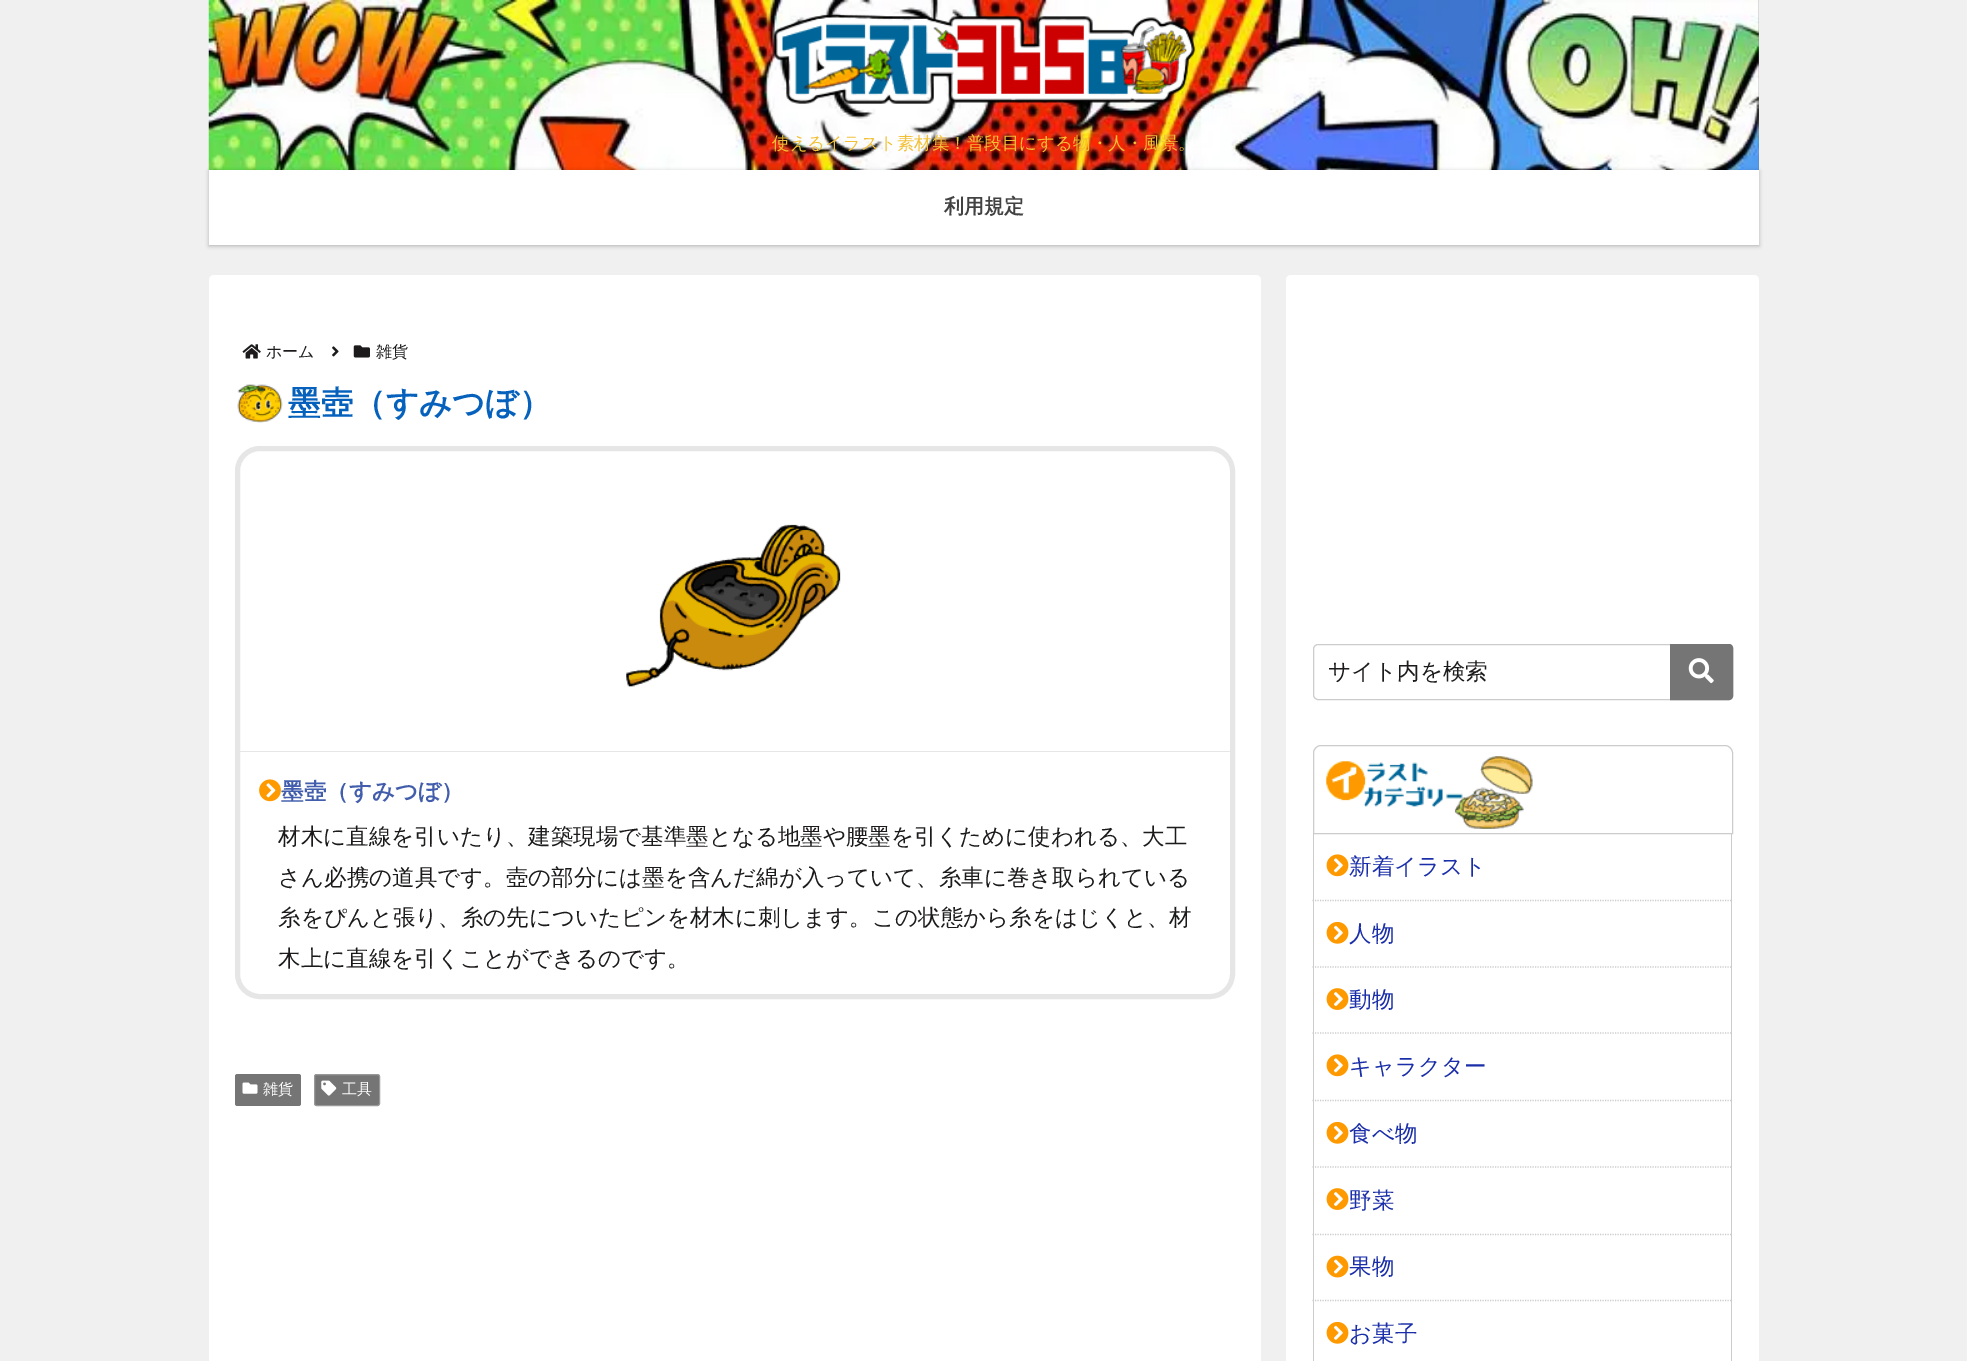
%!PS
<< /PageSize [1967 1361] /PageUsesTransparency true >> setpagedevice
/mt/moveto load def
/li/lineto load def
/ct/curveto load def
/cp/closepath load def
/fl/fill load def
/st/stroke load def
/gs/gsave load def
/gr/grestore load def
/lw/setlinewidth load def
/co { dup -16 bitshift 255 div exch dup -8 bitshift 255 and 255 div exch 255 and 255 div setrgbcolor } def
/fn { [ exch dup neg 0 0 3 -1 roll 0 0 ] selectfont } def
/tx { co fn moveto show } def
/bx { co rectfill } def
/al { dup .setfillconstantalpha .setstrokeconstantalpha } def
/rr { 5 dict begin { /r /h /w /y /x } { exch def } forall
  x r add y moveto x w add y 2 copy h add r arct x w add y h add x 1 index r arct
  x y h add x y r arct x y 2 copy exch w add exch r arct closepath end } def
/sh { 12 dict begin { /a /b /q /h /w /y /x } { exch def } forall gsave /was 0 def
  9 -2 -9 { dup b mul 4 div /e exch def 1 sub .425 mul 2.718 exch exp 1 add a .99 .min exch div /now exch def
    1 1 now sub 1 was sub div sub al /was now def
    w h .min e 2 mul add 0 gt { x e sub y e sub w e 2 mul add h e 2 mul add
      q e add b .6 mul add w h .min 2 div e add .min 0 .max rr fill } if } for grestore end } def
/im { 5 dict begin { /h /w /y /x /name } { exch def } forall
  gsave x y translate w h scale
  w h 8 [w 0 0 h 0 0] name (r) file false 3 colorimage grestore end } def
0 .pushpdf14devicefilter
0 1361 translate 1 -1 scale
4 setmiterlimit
0 0 1967 1361 16#F0F0F1 bx
(media/1.raw) 208 0 1551 170 im
(media/2.raw) 773 13 423 91 im
16#000000 co
209 171 1550 75 0 2 .25 sh
209 170 1550 75 16#FFFFFF bx
209 275 1052 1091 5 rr fl
(media/3.raw) 242 344 19 15 im
(media/4.raw) 332 346 7 11 im
(media/5.raw) 353 345 17 13 im
(media/6.raw) 237 384 46 39 im
16#E6E6E6 co
5 lw
237.5 448.5 995 548 22.5 rr st
(media/7.raw) 626 524 215 163 im
240 751 990 1 16#E6E6E6 bx
(media/8.raw) 259 779 22 23 im
16#757575 co
235 1074 66 32 2.5 rr fl
(media/9.raw) 242 1082 16 12 im
314.5 1074.5 65 31 2 rr gs fl gr
16#999999 co
1 lw
st
(media/10.raw) 321 1080 16 16 im
16#FFFFFF co
1286 275 473 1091 5 rr fl
16#CCCCCC co
1313.5 644.5 419 55 4.5 rr st
16#757575 co
1671.5 645.5 mt 1729 645.5 li 1730.5 645.5 1731.5 646.5 1731.5 648 ct 1731.5 696 li 1731.5 697.5 1730.5 698.5 1729 698.5 ct 1671.5 698.5 li cp gs fl gr
3 lw
st
(media/11.raw) 1688 658 26 26 im
16#CCCCCC co
1 lw
1321 745.5 mt 1725 745.5 li 1729 745.5 1732.5 749 1732.5 753 ct 1732.5 833.5 li 1313.5 833.5 li 1313.5 753 li 1313.5 749 1317 745.5 1321 745.5 ct cp st
(media/12.raw) 1326 756 207 73 im
1731 834 1 67 16#CCCCCC bx
1.2 lw
[1.25 1.25] 0 setdash
1312.5 900.5 mt 1732.5 900.5 li st
1313 834 1 67 16#CCCCCC bx
(media/13.raw) 1326 854 23 23 im
1731 901 1 200 16#CCCCCC bx
1312.5 967 mt 1732.5 967 li st
1313 901 1 67 16#CCCCCC bx
(media/14.raw) 1326 921 23 23 im
1312.5 1033 mt 1732.5 1033 li st
1313 968 1 66 16#CCCCCC bx
(media/15.raw) 1326 988 23 22 im
1312.5 1100.5 mt 1732.5 1100.5 li st
1313 1034 1 67 16#CCCCCC bx
(media/13.raw) 1326 1054 23 23 im
1731 1101 1 134 16#CCCCCC bx
1312.5 1167 mt 1732.5 1167 li st
1313 1101 1 67 16#CCCCCC bx
(media/14.raw) 1326 1121 23 23 im
1312.5 1234.5 mt 1732.5 1234.5 li st
1313 1168 1 67 16#CCCCCC bx
(media/15.raw) 1326 1188 23 22 im
1731 1235 1 66 16#CCCCCC bx
1312.5 1300.5 mt 1732.5 1300.5 li st
1313 1235 1 126 16#CCCCCC bx
(media/16.raw) 1326 1255 23 23 im
1731 1301 1 60 16#CCCCCC bx
(media/14.raw) 1326 1321 23 23 im
(使えるイラスト素材集！普段目にする物・人・風景。) 772 149 /WenQuanYiZenHei-Medium 17.5 16#F2C037 tx
(利用規定) 944 213 /WenQuanYiZenHei-Bold 20 16#424242 tx
(ホーム) 266 357 /WenQuanYiZenHei-Medium 16 16#1C1A1A tx
(雑貨) 376 357 /WenQuanYiZenHei-Medium 16 16#1C1A1A tx
(墨壺（すみつぼ）) 288 414 /WenQuanYiZenHei-Bold 32.5 16#0561BC tx
(墨壺（すみつぼ）) 281 799 /WenQuanYiZenHei-Bold 22.5 16#425DAB tx
(材木に直線を引いたり、建築現場で基準墨となる地墨や腰墨を引くために使われる、大工) 278 844 /WenQuanYiZenHei-Medium 22.5 16#1C1A1A tx
(さん必携の道具です。壺の部分には墨を含んだ綿が入っていて、糸車に巻き取られている) 278 885 /WenQuanYiZenHei-Medium 22.5 16#1C1A1A tx
(糸をぴんと張り、糸の先についたピンを材木に刺します。この状態から糸をはじくと、材) 278 925 /WenQuanYiZenHei-Medium 22.5 16#1C1A1A tx
(木上に直線を引くことができるのです。) 278 966 /WenQuanYiZenHei-Medium 22.5 16#1C1A1A tx
(雑貨) 263 1094 /WenQuanYiZenHei-Medium 15 16#FFFFFF tx
(工具) 342 1094 /WenQuanYiZenHei-Medium 15 16#FFFFFF tx
(サイト内を検索) 1328 679 /WenQuanYiZenHei-Medium 22.5 16#1C1A1A tx
(新着イラスト) 1349 874 /WenQuanYiZenHei-Medium 22.5 16#192EA8 tx
(人物) 1349 941 /WenQuanYiZenHei-Medium 22.5 16#192EA8 tx
(動物) 1349 1007 /WenQuanYiZenHei-Medium 22.5 16#192EA8 tx
(キャラクター) 1349 1074 /WenQuanYiZenHei-Medium 22.5 16#192EA8 tx
(食べ物) 1349 1141 /WenQuanYiZenHei-Medium 22.5 16#192EA8 tx
(野菜) 1349 1208 /WenQuanYiZenHei-Medium 22.5 16#192EA8 tx
(果物) 1349 1274 /WenQuanYiZenHei-Medium 22.5 16#192EA8 tx
(お菓子) 1349 1341 /WenQuanYiZenHei-Medium 22.5 16#192EA8 tx
.poppdf14devicefilter showpage
